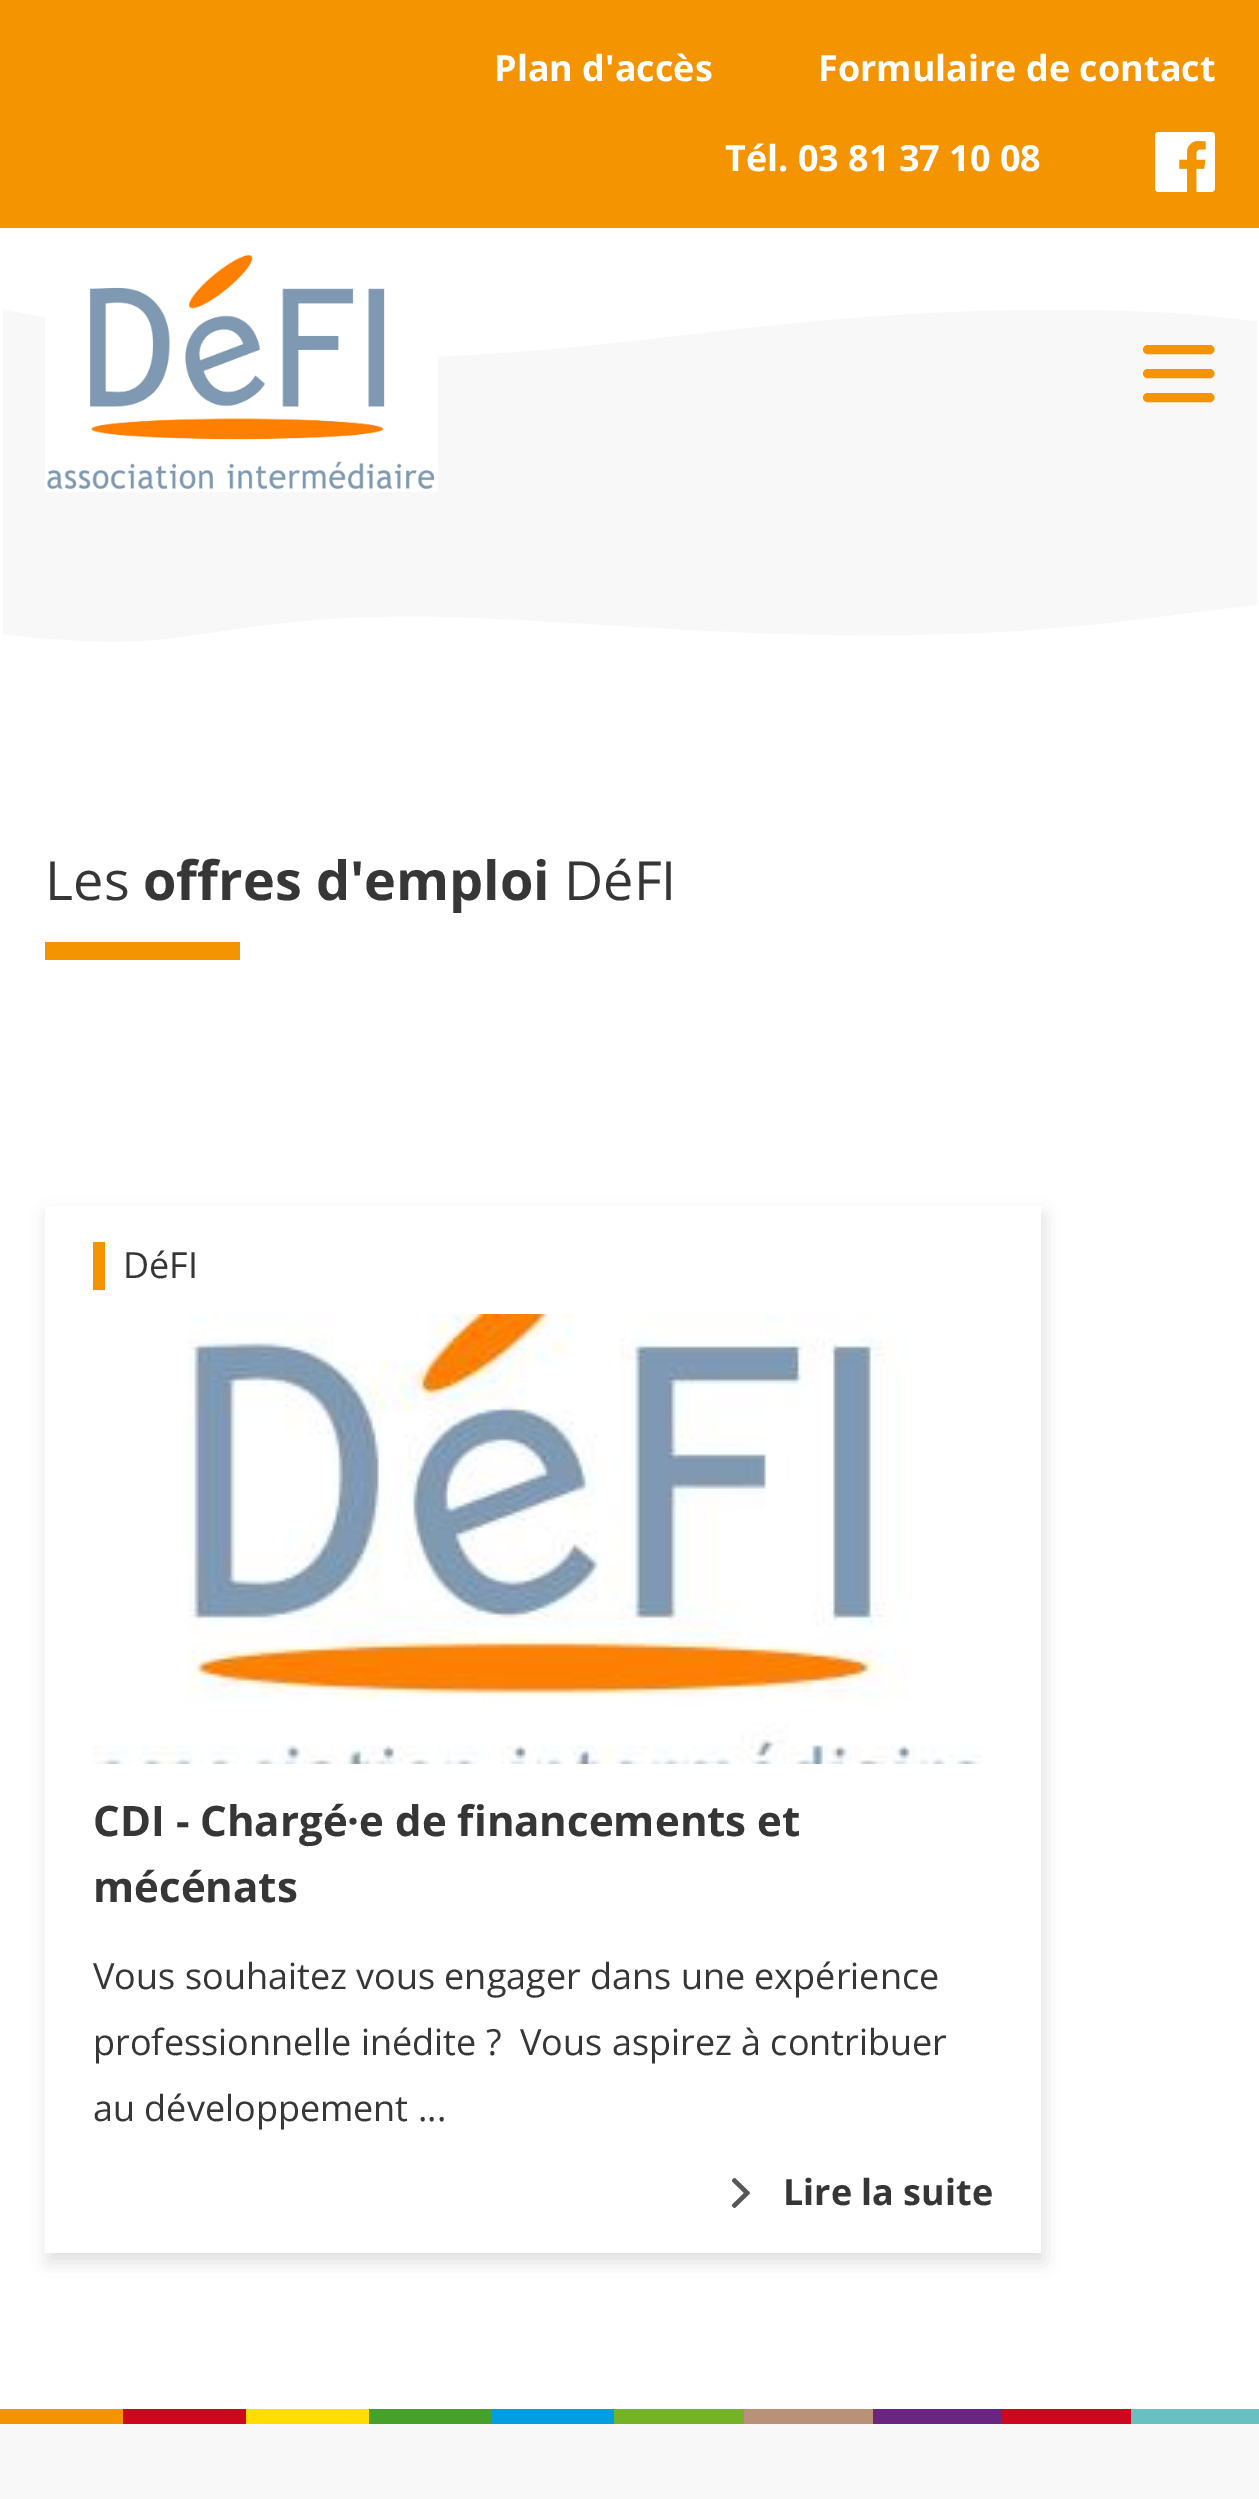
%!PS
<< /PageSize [1259 2499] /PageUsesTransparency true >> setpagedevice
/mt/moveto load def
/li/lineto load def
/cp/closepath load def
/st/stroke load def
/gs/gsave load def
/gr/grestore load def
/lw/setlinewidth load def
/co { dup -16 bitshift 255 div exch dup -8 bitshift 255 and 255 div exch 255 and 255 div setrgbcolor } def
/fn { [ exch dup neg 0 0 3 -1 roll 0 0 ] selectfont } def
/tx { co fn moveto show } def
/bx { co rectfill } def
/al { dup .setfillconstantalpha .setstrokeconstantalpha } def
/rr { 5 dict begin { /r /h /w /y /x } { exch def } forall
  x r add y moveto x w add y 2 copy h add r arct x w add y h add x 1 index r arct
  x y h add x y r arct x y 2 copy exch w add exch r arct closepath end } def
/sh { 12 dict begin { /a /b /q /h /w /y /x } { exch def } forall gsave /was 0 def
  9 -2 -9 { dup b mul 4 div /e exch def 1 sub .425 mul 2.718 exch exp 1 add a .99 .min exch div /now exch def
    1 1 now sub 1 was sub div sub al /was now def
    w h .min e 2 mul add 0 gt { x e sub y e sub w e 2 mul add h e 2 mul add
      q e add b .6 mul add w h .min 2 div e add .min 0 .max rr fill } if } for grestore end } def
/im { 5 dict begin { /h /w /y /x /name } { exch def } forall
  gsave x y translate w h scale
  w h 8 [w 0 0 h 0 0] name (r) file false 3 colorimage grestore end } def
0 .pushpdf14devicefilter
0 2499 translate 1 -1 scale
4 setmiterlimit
0 0 1259 2499 16#FFFFFF bx
(media/1.raw) 3 309 1254 333 im
0 0 1259 228 16#F39400 bx
(media/2.raw) 1155 132 60 60 im
(media/3.raw) 45 255 393 237 im
9 lw
1 setlinecap
1147.5 349.5 mt 1210 349.5 li st
1147.5 373.5 mt 1210 373.5 li st
1147.5 397.5 mt 1210 397.5 li st
45 942 195 18 16#F39400 bx
gs
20 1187 mt 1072 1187 li 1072 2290 li 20 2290 li cp 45 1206 mt 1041 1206 li 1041 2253 li 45 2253 li cp eoclip newpath
16#000000 co
48 1215 996 1047 0 9 .12 sh
gr
93 1242 12 48 16#F39400 bx
(media/4.raw) 93 1314 889 450 im
(media/5.raw) 732 2178 18 30 im
0 2424 1259 75 16#F8F8F8 bx
0 2409 123 15 16#F29400 bx
123 2409 123 15 16#CC071E bx
246 2409 123 15 16#FFDD00 bx
369 2409 123 15 16#45A12A bx
492 2409 122 15 16#009EE0 bx
614 2409 130 15 16#74B228 bx
744 2409 129 15 16#B89178 bx
873 2409 129 15 16#6A2582 bx
1002 2409 129 15 16#CD071E bx
1131 2409 128 15 16#68C1C0 bx
(Plan d'accès) 494 81 /OpenSans-Bold 36 16#FFFFFF tx
(Formulaire de contact) 818 81 /OpenSans-Bold 36 16#FFFFFF tx
(Tél. 03 81 37 10 08) 725 171 /OpenSans-Bold 36 16#FFFFFF tx
(Les) 45 900 /OpenSans-Regular 54 16#363636 tx
(offres d'emploi) 143 900 /OpenSans-Bold 54 16#363636 tx
(DéFI) 564 900 /OpenSans-Regular 54 16#363636 tx
(DéFI) 123 1278 /OpenSans-Regular 36 16#363636 tx
(CDI - Chargé·e de financements et) 93 1836 /OpenSans-Bold 42 16#363636 tx
(mécénats) 93 1902 /OpenSans-Bold 42 16#363636 tx
(Vous souhaitez vous engager dans une expérience) 93 1989 /OpenSans-Regular 36 16#363636 tx
(professionnelle inédite ?) 93 2055 /OpenSans-Regular 36 16#363636 tx
(Vous aspirez à contribuer) 520 2055 /OpenSans-Regular 36 16#363636 tx
(au développement ...) 93 2121 /OpenSans-Regular 36 16#363636 tx
(Lire la suite) 783 2205 /OpenSans-Bold 36 16#363636 tx
.poppdf14devicefilter showpage
